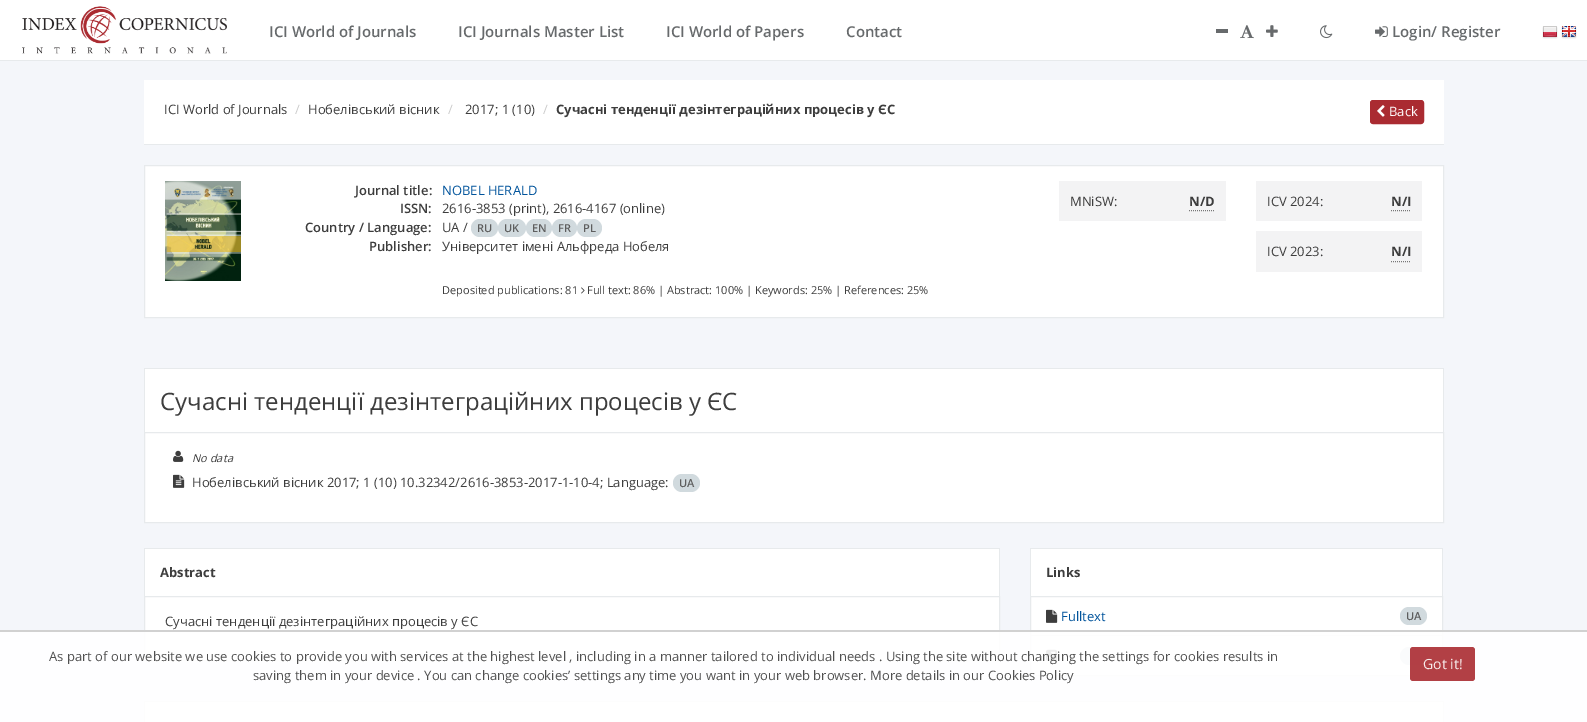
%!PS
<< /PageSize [1587 722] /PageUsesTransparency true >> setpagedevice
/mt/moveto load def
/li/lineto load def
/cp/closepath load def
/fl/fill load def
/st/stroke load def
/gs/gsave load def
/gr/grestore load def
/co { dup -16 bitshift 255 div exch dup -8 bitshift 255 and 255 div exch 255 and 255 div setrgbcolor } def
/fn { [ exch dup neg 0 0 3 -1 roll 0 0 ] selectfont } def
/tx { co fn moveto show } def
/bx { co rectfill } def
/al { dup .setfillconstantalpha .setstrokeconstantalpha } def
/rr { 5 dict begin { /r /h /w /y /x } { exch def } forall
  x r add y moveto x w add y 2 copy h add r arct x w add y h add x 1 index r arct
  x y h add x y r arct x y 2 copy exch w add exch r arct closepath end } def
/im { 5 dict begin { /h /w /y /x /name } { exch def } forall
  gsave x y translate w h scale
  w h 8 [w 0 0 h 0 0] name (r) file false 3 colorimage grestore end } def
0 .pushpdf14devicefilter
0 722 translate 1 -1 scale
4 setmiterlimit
0 0 1587 722 16#F4F6FA bx
0 0 1587 60 16#FFFFFF bx
0 60 1587 1 16#E7EAEC bx
(media/1.raw) 22 6 205 48 im
1216 29 12 4 16#676A6C bx
(media/2.raw) 1240 25 14 14 im
(media/3.raw) 1266 25 12 12 im
(media/4.raw) 1320 25 13 14 im
(media/5.raw) 1375 26 13 11 im
(media/6.raw) 1542 26 16 13 im
(media/7.raw) 1561 26 16 13 im
144 80 1300 64 16#FFFFFF bx
144 144 1300 1 16#E7EAEC bx
16#AA2B31 co
1370.5 100.5 53 23 2.5 rr gs fl gr
st
(media/8.raw) 1377 105 8 12 im
16#FFFFFF co
144.5 165.5 mt 1443.5 165.5 li 1443.5 317.5 li 144.5 317.5 li cp gs fl gr
16#E7EAEC co
st
(media/9.raw) 165 181 76 100 im
16#D1DADE co
471 219 27 18 9 rr fl
498 219 28 18 9 rr fl
526 219 26 18 9 rr fl
552 219 25 18 9 rr fl
577 219 25 18 9 rr fl
1059 181 167 40 16#F3F3F4 bx
16#777777 co
[1 1] 0 setdash
1189 210.5 mt 1215 210.5 li st
1256 181 166 40 16#F3F3F4 bx
16#777777 co
1391 210.5 mt 1411 210.5 li st
1256 231 166 41 16#F3F3F4 bx
16#777777 co
1391 261.5 mt 1411 261.5 li st
(media/10.raw) 581 287 4 7 im
145 369 1298 63 16#FFFFFF bx
144 368 1300 1 16#E7EAEC bx
1443 368 1 64 16#E7EAEC bx
144 368 1 64 16#E7EAEC bx
16#FFFFFF co
144.5 432.5 mt 1443.5 432.5 li 1443.5 522.5 li 144.5 522.5 li cp gs fl gr
16#E7EAEC co
[] 0 setdash
st
(media/11.raw) 173 450 11 12 im
(media/12.raw) 173 474 12 14 im
16#D1DADE co
673 474 27 18 9 rr fl
145 549 854 47 16#FFFFFF bx
144 548 856 1 16#E7EAEC bx
999 548 1 48 16#E7EAEC bx
144 548 1 48 16#E7EAEC bx
16#FFFFFF co
144.5 596.5 mt 999.5 596.5 li 999.5 660.5 li 144.5 660.5 li cp gs fl gr
16#E7EAEC co
st
1031 549 411 47 16#FFFFFF bx
1030 548 413 1 16#E7EAEC bx
1442 548 1 48 16#E7EAEC bx
1030 548 1 48 16#E7EAEC bx
16#FFFFFF co
1030.5 596.5 mt 1442.5 596.5 li 1442.5 675.5 li 1030.5 675.5 li cp gs fl gr
16#E7EAEC co
st
(media/13.raw) 1046 609 12 14 im
16#D1DADE co
1400 607 27 18 9 rr fl
1031 635 411 1 16#E7EAEC bx
(media/14.raw) 1046 649 12 12 im
16#D1DADE co
1400 647 27 18 9 rr fl
145 702 1298 20 16#FFFFFF bx
144 701 1300 1 16#E7EAEC bx
1443 701 1 21 16#E7EAEC bx
144 701 1 21 16#E7EAEC bx
0.9 al
0 632 1587 90 16#FFFFFF bx
1 al
0 630 1587 2 16#D1D1D1 bx
0.9 al
16#AA2B31 co
1410 647 65 34 3 rr fl
1 al
(ICI World of Journals) 269 37 /OpenSans-SemiBold 15 16#676A6C tx
(ICI Journals Master List) 458 37 /OpenSans-SemiBold 15 16#676A6C tx
(ICI World of Papers) 666 37 /OpenSans-SemiBold 15 16#676A6C tx
(Contact) 846 37 /OpenSans-SemiBold 15 16#676A6C tx
(Login/ Register) 1392 37 /OpenSans-SemiBold 15 16#676A6C tx
(ICI World of Journals) 164 114 /OpenSans-Regular 13 16#3D3D3D tx
(/) 295 114 /OpenSans-Regular 13 16#CCCCCC tx
(Нобелівський вісник) 308 114 /OpenSans-Regular 13 16#3D3D3D tx
(/) 448 114 /OpenSans-Regular 13 16#CCCCCC tx
(2017; 1 \(10\)) 465 114 /OpenSans-Regular 13 16#3D3D3D tx
(/) 543 114 /OpenSans-Regular 13 16#CCCCCC tx
(Сучасні тенденції дезінтеграційних процесів у ЄС) 556 114 /OpenSans-Bold 13 16#3D3D3D tx
(Back) 1389 116 /OpenSans-Regular 13 16#FFFFFF tx
(Journal title:) 355 195 /OpenSans-SemiBold 13 16#3D3D3D tx
(NOBEL HERALD) 442 195 /OpenSans-Regular 13 16#00539B tx
(ISSN:) 400 213 /OpenSans-SemiBold 13 16#3D3D3D tx
(2616-3853 \(print\), 2616-4167 \(online\)) 442 213 /OpenSans-Regular 13 16#3D3D3D tx
(Country / Language:) 305 232 /OpenSans-SemiBold 13 16#3D3D3D tx
(UA /) 442 232 /OpenSans-Regular 13 16#3D3D3D tx
(RU) 477 232 /OpenSans-SemiBold 11 16#5E5E5E tx
(UK) 504 232 /OpenSans-SemiBold 11 16#5E5E5E tx
(EN) 532 232 /OpenSans-SemiBold 11 16#5E5E5E tx
(FR) 558 232 /OpenSans-SemiBold 11 16#5E5E5E tx
(PL) 583 232 /OpenSans-SemiBold 11 16#5E5E5E tx
(Publisher:) 369 251 /OpenSans-SemiBold 13 16#3D3D3D tx
(Університет імені Альфреда Нобеля) 442 251 /OpenSans-Regular 13 16#3D3D3D tx
(MNiSW:) 1070 206 /OpenSans-Regular 13 16#3D3D3D tx
(N/D) 1189 206 /OpenSans-Bold 13 16#3D3D3D tx
(ICV 2024:) 1267 206 /OpenSans-Regular 13 16#3D3D3D tx
(N/I) 1391 206 /OpenSans-Bold 13 16#3D3D3D tx
(ICV 2023:) 1267 256 /OpenSans-Regular 13 16#3D3D3D tx
(N/I) 1391 256 /OpenSans-Bold 13 16#3D3D3D tx
(Deposited publications: 81) 442 294 /OpenSans-Regular 11 16#3D3D3D tx
(Full text: 86% | Abstract: 100% | Keywords: 25% | References: 25%) 587 294 /OpenSans-Regular 11 16#3D3D3D tx
(Сучасні тенденції дезінтеграційних процесів у ЄС) 160 410 /OpenSans-Regular 24 16#3D3D3D tx
(No data) 192 462 /OpenSans-Italic 11 16#3D3D3D tx
(Нобелівський вісник 2017; 1 \(10\) 10.32342/2616-3853-2017-1-10-4; Language:) 192 487 /OpenSans-Regular 13 16#3D3D3D tx
(UA) 679 487 /OpenSans-SemiBold 11 16#5E5E5E tx
(Abstract) 160 577 /OpenSans-Bold 13 16#3D3D3D tx
(Сучасні тенденції дезінтеграційних процесів у ЄС) 165 626 /OpenSans-Regular 13 16#3D3D3D tx
(Links) 1046 577 /OpenSans-Bold 13 16#3D3D3D tx
(Fulltext) 1061 621 /OpenSans-Regular 13 16#00539B tx
(UA) 1406 620 /OpenSans-SemiBold 11 16#5E5E5E tx
(As part of our website we use cookies to provide you with services at the highest level , including in a manner tailored to individual needs . Using the site without changing the settings for cookies results in) 49 661 /OpenSans-Regular 13 16#505050 tx
(saving them in your device . You can change cookies’ settings any time you want in your web browser. More details in our Cookies Policy) 253 680 /OpenSans-Regular 13 16#505050 tx
(Got it!) 1423 669 /OpenSans-Regular 14 16#F7ECEC tx
.poppdf14devicefilter showpage
